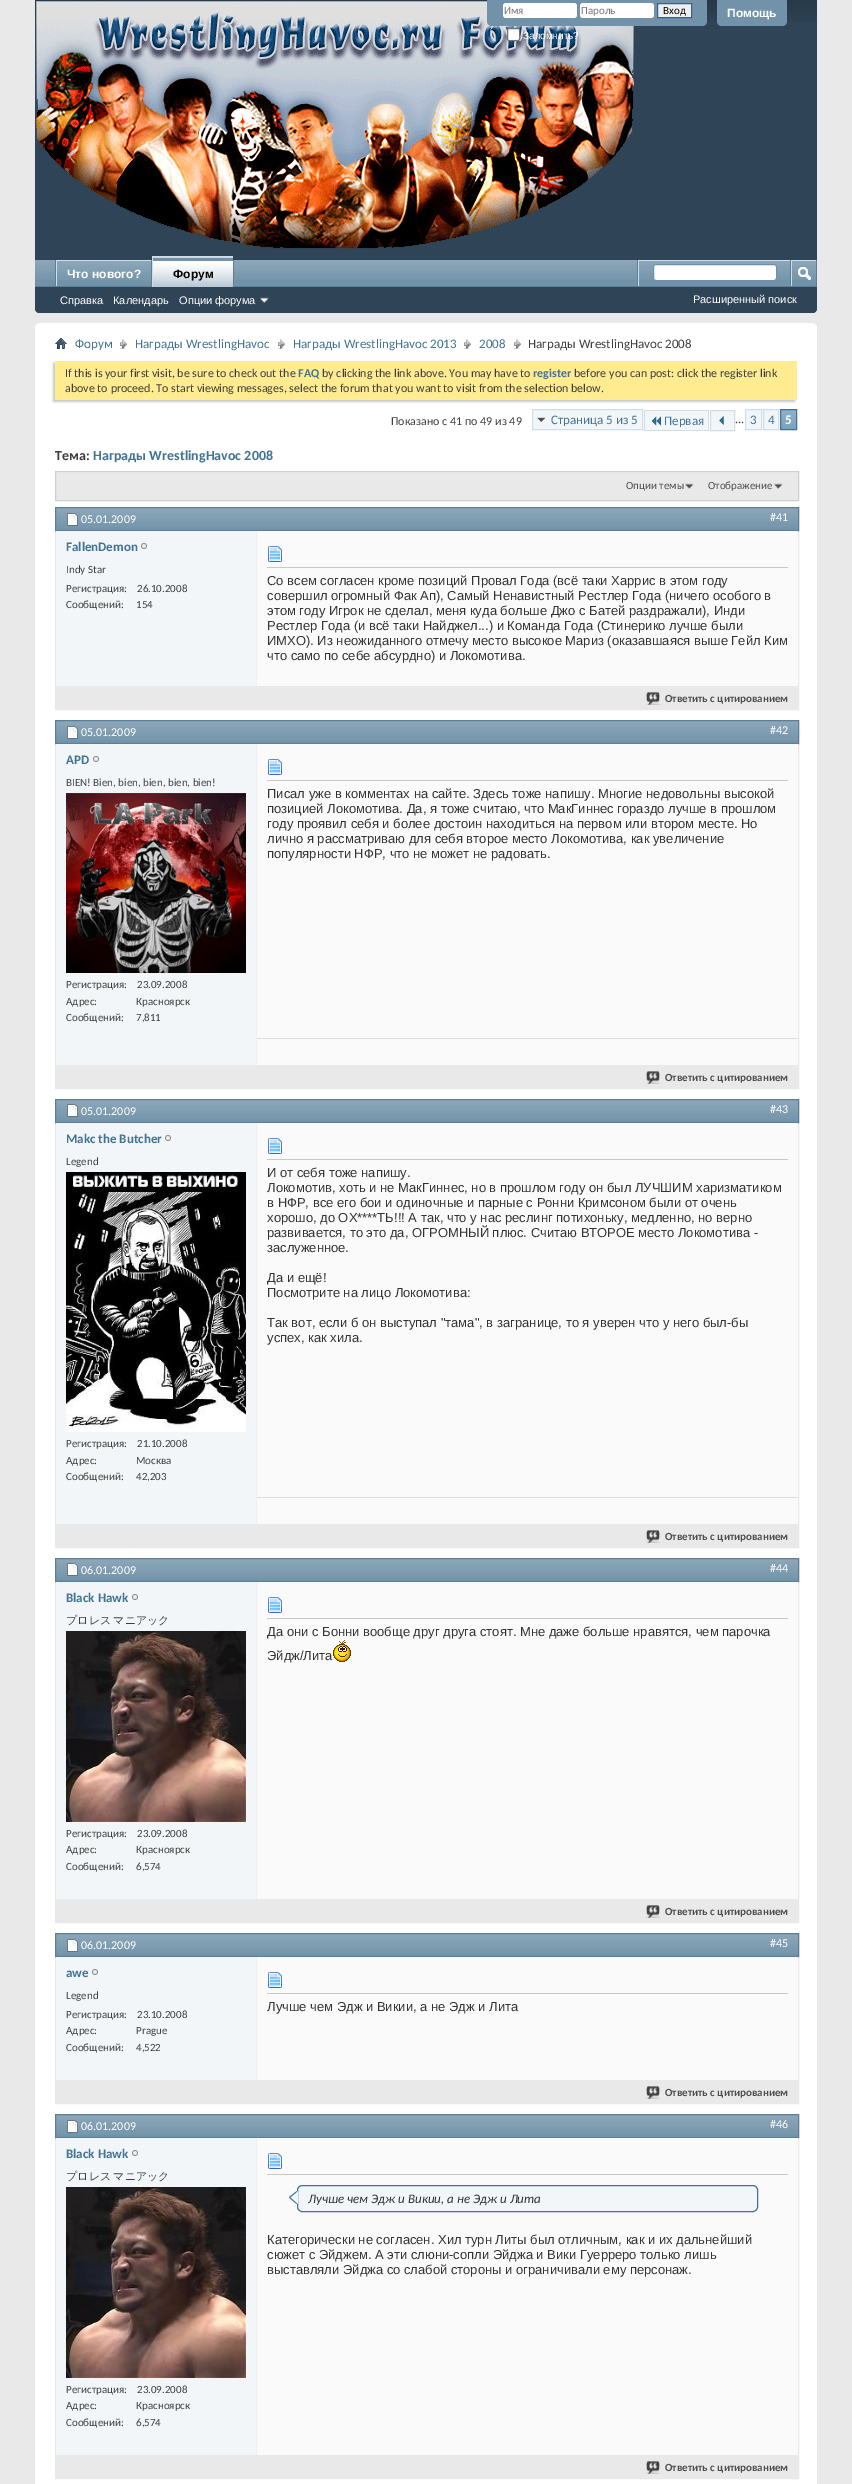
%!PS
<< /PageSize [852 2484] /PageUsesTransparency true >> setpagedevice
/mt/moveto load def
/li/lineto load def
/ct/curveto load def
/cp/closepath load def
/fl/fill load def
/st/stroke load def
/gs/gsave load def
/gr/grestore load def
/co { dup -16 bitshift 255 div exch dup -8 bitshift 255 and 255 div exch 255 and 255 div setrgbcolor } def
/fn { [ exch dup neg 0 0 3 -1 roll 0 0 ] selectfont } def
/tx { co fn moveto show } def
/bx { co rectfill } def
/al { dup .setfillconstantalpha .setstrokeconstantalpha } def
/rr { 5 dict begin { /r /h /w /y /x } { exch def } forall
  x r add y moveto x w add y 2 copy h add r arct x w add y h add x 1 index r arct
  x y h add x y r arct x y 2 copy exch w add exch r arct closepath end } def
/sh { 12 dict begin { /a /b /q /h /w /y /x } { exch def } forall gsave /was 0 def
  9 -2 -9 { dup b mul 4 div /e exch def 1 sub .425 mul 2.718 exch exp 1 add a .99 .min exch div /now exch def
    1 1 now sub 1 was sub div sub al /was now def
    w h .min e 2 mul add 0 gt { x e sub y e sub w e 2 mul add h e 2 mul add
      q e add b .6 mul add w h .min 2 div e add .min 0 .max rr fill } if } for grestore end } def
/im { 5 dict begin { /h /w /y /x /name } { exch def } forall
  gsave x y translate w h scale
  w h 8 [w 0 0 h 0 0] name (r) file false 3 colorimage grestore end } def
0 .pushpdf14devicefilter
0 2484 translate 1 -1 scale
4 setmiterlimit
0 0 852 2484 16#E9E9E9 bx
16#2F4456 co
35 0 mt 817 0 li 817 308 li 817 311 815 313 812 313 ct 40 313 li 37 313 35 311 35 308 ct cp fl
(media/1.raw) 35 0 782 22 im
(media/2.raw) 36 1 598 248 im
16#7192A8 co
487 0 mt 707 0 li 707 21 li 707 24 705 26 702 26 ct 492 26 li 489 26 487 24 487 21 ct cp fl
16#FFFFFF co
503 3 74 15 3 rr fl
580 3 74 15 3 rr fl
16#EFEFEF co
657.5 3.5 mt 691.5 3.5 li 691.5 17.5 li 657.5 17.5 li cp gs fl gr
16#415D8D co
st
16#FFFFFF co
507.5 28.5 12 12 1.5 rr gs fl gr
16#767676 co
st
16#7192A8 co
717 0 mt 787 0 li 787 21 li 787 24 785 26 782 26 ct 722 26 li 719 26 717 24 717 21 ct cp fl
16#2F4456 co
35 260 mt 817 260 li 817 308 li 817 311 815 313 812 313 ct 40 313 li 37 313 35 311 35 308 ct cp fl
35 260 781 26 16#7192A8 bx
(media/3.raw) 35 260 781 20 im
151 260 1 27 16#5A7F97 bx
55 260 1 27 16#5A7F97 bx
57 261 94 19 16#7192A8 bx
(media/4.raw) 57 261 94 20 im
56 260 95 1 16#CEDFEB bx
56 260 1 27 16#CEDFEB bx
233 260 1 26 16#5A7F97 bx
35 286 782 1 16#5A7F97 bx
153 257 80 30 16#7192A8 bx
(media/5.raw) 153 257 80 30 im
152 256 81 1 16#CEDFEB bx
152 256 1 31 16#CEDFEB bx
(media/6.raw) 260 297 9 6 im
637 260 1 26 16#5A7F97 bx
638 260 152 1 16#CEDFEB bx
638 260 1 26 16#CEDFEB bx
16#FFFFFF co
653.5 264.5 123 16 2.5 rr gs fl gr
16#6B91AB co
st
816 260 1 26 16#5A7F97 bx
790 260 1 26 16#5A7F97 bx
791 260 25 1 16#CEDFEB bx
791 260 1 26 16#CEDFEB bx
(media/7.raw) 798 267 13 14 im
16#FFFFFF co
35 323 782 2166 5 rr fl
(media/8.raw) 55 338 12 11 im
(media/9.raw) 120 339 7 10 im
(media/9.raw) 278 339 7 10 im
(media/9.raw) 464 339 7 10 im
(media/9.raw) 514 339 7 10 im
16#C8C8C8 co
53 363 742 39 0 1 1 sh
55 361 742 39 16#FFEB90 bx
533 410 109 19 16#F2F6F8 bx
(media/10.raw) 537 417 9 6 im
16#CEDFEB co
532.5 409.5 110 20 rectstroke
645 411 63 19 16#F2F6F8 bx
(media/11.raw) 651 416 10 10 im
644 410 65 1 16#CEDFEB bx
644 430 20 1 16#CEDFEB bx
644 410 1 21 16#CEDFEB bx
708 410 1 21 16#CEDFEB bx
664 430 45 1 16#CEDFEB bx
16#F2F6F8 co
710.5 410.5 mt 734.5 410.5 li 734.5 430.5 li 710.5 430.5 li cp gs fl gr
16#CEDFEB co
st
(media/12.raw) 719 416 5 9 im
16#F2F6F8 co
745.5 409.5 mt 761.5 409.5 li 761.5 429.5 li 745.5 429.5 li cp gs fl gr
16#CEDFEB co
st
16#F2F6F8 co
763.5 409.5 mt 778.5 409.5 li 778.5 429.5 li 763.5 429.5 li cp gs fl gr
16#CEDFEB co
st
781 410 15 19 16#759FBB bx
(media/13.raw) 781 410 15 19 im
16#417394 co
780.5 409.5 16 20 rectstroke
56 473 742 27 16#E9E9E9 bx
55 472 744 1 16#EDEDED bx
16#CECECE co
55.5 471.5 743 29 rectstroke
(media/14.raw) 685 483 9 7 im
(media/14.raw) 774 483 9 7 im
16#E9E9E9 co
55.5 507.5 743 202 rectstroke
56 508 742 22 16#7192A8 bx
(media/15.raw) 56 508 742 20 im
16#5A7F97 co
55.5 507.5 743 23 rectstroke
(media/16.raw) 67 513 11 13 im
56 531 200 155 16#F2F6F8 bx
(media/17.raw) 141 543 6 6 im
257 531 541 155 16#FAFAFA bx
256 531 1 155 16#EFEFEF bx
267 567 521 1 16#C8C8C8 bx
(media/18.raw) 268 546 14 16 im
56 686 742 23 16#E9E9E9 bx
(media/19.raw) 646 692 14 13 im
55.5 720.5 743 368 rectstroke
56 721 742 22 16#7192A8 bx
(media/15.raw) 56 721 742 20 im
16#5A7F97 co
55.5 720.5 743 23 rectstroke
(media/16.raw) 67 726 11 13 im
56 744 200 321 16#F2F6F8 bx
(media/17.raw) 93 756 6 6 im
(media/20.raw) 66 793 180 180 im
257 744 541 321 16#FAFAFA bx
256 744 1 321 16#EFEFEF bx
267 780 521 1 16#C8C8C8 bx
(media/18.raw) 268 759 14 16 im
257 1038 541 1 16#DDDDDD bx
56 1065 742 23 16#E9E9E9 bx
(media/19.raw) 646 1071 14 13 im
55.5 1099.5 743 448 rectstroke
56 1100 742 22 16#7192A8 bx
(media/15.raw) 56 1100 742 20 im
16#5A7F97 co
55.5 1099.5 743 23 rectstroke
(media/21.raw) 67 1104 11 13 im
56 1123 200 401 16#F2F6F8 bx
(media/17.raw) 165 1135 6 6 im
(media/22.raw) 66 1172 180 260 im
257 1123 541 401 16#FAFAFA bx
256 1123 1 401 16#EFEFEF bx
267 1159 521 1 16#C8C8C8 bx
(media/18.raw) 268 1138 14 16 im
257 1497 541 1 16#DDDDDD bx
56 1524 742 23 16#E9E9E9 bx
(media/19.raw) 646 1530 14 13 im
55.5 1558.5 743 364 rectstroke
56 1559 742 22 16#7192A8 bx
(media/15.raw) 56 1559 742 20 im
16#5A7F97 co
55.5 1558.5 743 23 rectstroke
(media/21.raw) 67 1563 11 13 im
56 1582 200 317 16#F2F6F8 bx
(media/17.raw) 132 1594 6 6 im
(media/23.raw) 66 1631 180 191 im
257 1582 541 317 16#FAFAFA bx
256 1582 1 317 16#EFEFEF bx
267 1618 521 1 16#C8C8C8 bx
(media/18.raw) 268 1597 14 16 im
(media/24.raw) 333 1640 18 22 im
56 1899 742 23 16#E9E9E9 bx
(media/19.raw) 646 1905 14 13 im
55.5 1933.5 743 170 rectstroke
56 1934 742 22 16#7192A8 bx
(media/15.raw) 56 1934 742 20 im
16#5A7F97 co
55.5 1933.5 743 23 rectstroke
(media/16.raw) 67 1939 11 13 im
56 1957 200 123 16#F2F6F8 bx
(media/17.raw) 92 1969 6 6 im
257 1957 541 123 16#FAFAFA bx
256 1957 1 123 16#EFEFEF bx
267 1993 521 1 16#C8C8C8 bx
(media/18.raw) 268 1972 14 16 im
56 2080 742 23 16#E9E9E9 bx
(media/19.raw) 646 2086 14 13 im
55.5 2114.5 743 364 rectstroke
56 2115 742 22 16#7192A8 bx
(media/15.raw) 56 2115 742 20 im
16#5A7F97 co
55.5 2114.5 743 23 rectstroke
(media/16.raw) 67 2120 11 13 im
56 2138 200 317 16#F2F6F8 bx
(media/17.raw) 132 2150 6 6 im
(media/25.raw) 66 2187 180 191 im
257 2138 541 317 16#FAFAFA bx
256 2138 1 317 16#EFEFEF bx
267 2174 521 1 16#C8C8C8 bx
(media/18.raw) 268 2153 14 16 im
16#F2F6F8 co
297.5 2185.5 460 26 4.5 rr gs fl gr
16#417394 co
st
(media/26.raw) 289 2191 9 13 im
56 2455 742 23 16#E9E9E9 bx
(media/19.raw) 646 2461 14 13 im
(Имя) 504 14 /Carlito-Regular 11 16#777777 tx
(Пароль) 581 14 /Carlito-Regular 11 16#777777 tx
(Вход) 663 14 /Carlito-Regular 11 16#000000 tx
(Запомнить?) 523 39 /LiberationSans-Regular 10 16#FFFFFF tx
(Помощь) 727 17 /LiberationSans-Bold 12 16#FFFFFF tx
(Что нового?) 67 278 /LiberationSans-Bold 12 16#FFFFFF tx
(Форум) 173 278 /LiberationSans-Bold 12 16#000000 tx
(Справка) 60 304 /LiberationSans-Regular 11 16#FFFFFF tx
(Календарь) 113 304 /LiberationSans-Regular 11 16#FFFFFF tx
(Опции форума) 179 304 /LiberationSans-Regular 11 16#FFFFFF tx
(Расширенный поиск) 693 303 /LiberationSans-Regular 11 16#FFFFFF tx
(Форум) 75 348 /Carlito-Regular 13 16#417394 tx
(Награды WrestlingHavoc) 135 348 /Carlito-Regular 13 16#417394 tx
(Награды WrestlingHavoc 2013) 293 348 /Carlito-Regular 13 16#417394 tx
(2008) 479 348 /Carlito-Regular 13 16#417394 tx
(Награды WrestlingHavoc 2008) 528 348 /Carlito-Regular 13 16#3E3E3E tx
(If this is your first visit, be sure to check out the) 65 377 /Carlito-Regular 12 16#3E3E3E tx
(FAQ) 298 377 /Carlito-Bold 12 16#417394 tx
(by clicking the link above. You may have to) 322 377 /Carlito-Regular 12 16#3E3E3E tx
(register) 533 377 /Carlito-Bold 12 16#417394 tx
(before you can post: click the register link) 574 377 /Carlito-Regular 12 16#3E3E3E tx
(above to proceed. To start viewing messages, select the forum that you want to visit from the selection below.) 65 392 /Carlito-Regular 12 16#3E3E3E tx
(Показано с 41 по 49 из 49) 391 425 /Carlito-Regular 12 16#3E3E3E tx
(Страница 5 из 5) 551 424 /Carlito-Regular 13 16#417394 tx
(Первая) 664 425 /Carlito-Regular 13 16#417394 tx
(...) 735 423 /Carlito-Regular 12 16#3E3E3E tx
(3) 750 424 /Carlito-Regular 13 16#417394 tx
(4) 768 424 /Carlito-Regular 13 16#417394 tx
(5) 785 424 /Carlito-Bold 13 16#FFFFFF tx
(Тема:) 55 460 /Carlito-Bold 14 16#3E3E3E tx
(Награды WrestlingHavoc 2008) 93 460 /Carlito-Bold 14 16#417394 tx
(Опции темы) 626 489 /Carlito-Regular 11 16#4E4E4E tx
(Отображение) 708 489 /Carlito-Regular 11 16#4E4E4E tx
(05.01.2009) 81 523 /Carlito-Regular 12 16#FFFFFF tx
(#41) 770 521 /Carlito-Regular 12 16#FFFFFF tx
(FallenDemon) 66 551 /Carlito-Bold 13 16#417394 tx
(Indy Star) 66 573 /Carlito-Regular 11 16#3E3E3E tx
(Регистрация:) 66 592 /Carlito-Regular 11 16#3E3E3E tx
(26.10.2008) 137 592 /Carlito-Regular 11 16#3E3E3E tx
(Сообщений:) 66 608 /Carlito-Regular 11 16#3E3E3E tx
(154) 136 608 /Carlito-Regular 11 16#3E3E3E tx
(Со всем согласен кроме позиций Провал Года \(всё таки Харрис в этом году) 267 585 /LiberationSans-Regular 13 16#333333 tx
(совершил огромный Фак Ап\), Самый Ненавистный Рестлер Года \(ничего особого в) 267 600 /LiberationSans-Regular 13 16#333333 tx
(этом году Игрок не сделал, меня куда больше Джо с Батей раздражали\), Инди) 267 615 /LiberationSans-Regular 13 16#333333 tx
(Рестлер Года \(и всё таки Найджел...\) и Команда Года \(Стинерико лучше были) 267 630 /LiberationSans-Regular 13 16#333333 tx
(ИМХО\). Из неожиданного отмечу место высокое Мариз \(оказавшаяся выше Гейл Ким) 267 645 /LiberationSans-Regular 13 16#333333 tx
(что само по себе абсурдно\) и Локомотива.) 267 660 /LiberationSans-Regular 13 16#333333 tx
(Ответить с цитированием) 665 702 /Carlito-Bold 11 16#4E4E4E tx
(05.01.2009) 81 736 /Carlito-Regular 12 16#FFFFFF tx
(#42) 770 734 /Carlito-Regular 12 16#FFFFFF tx
(APD) 66 764 /Carlito-Bold 13 16#417394 tx
(BIEN! Bien, bien, bien, bien, bien!) 66 786 /Carlito-Regular 11 16#3E3E3E tx
(Регистрация:) 66 988 /Carlito-Regular 11 16#3E3E3E tx
(23.09.2008) 137 988 /Carlito-Regular 11 16#3E3E3E tx
(Адрес:) 66 1005 /Carlito-Regular 11 16#3E3E3E tx
(Красноярск) 136 1005 /Carlito-Regular 11 16#3E3E3E tx
(Сообщений:) 66 1021 /Carlito-Regular 11 16#3E3E3E tx
(7,811) 136 1021 /Carlito-Regular 11 16#3E3E3E tx
(Писал уже в комментах на сайте. Здесь тоже напишу. Многие недовольны высокой) 267 798 /LiberationSans-Regular 13 16#333333 tx
(позицией Локомотива. Да, я тоже считаю, что МакГиннес гораздо лучше в прошлом) 267 813 /LiberationSans-Regular 13 16#333333 tx
(году проявил себя и более достоин находиться на первом или втором месте. Но) 267 828 /LiberationSans-Regular 13 16#333333 tx
(лично я рассматриваю для себя второе место Локомотива, как увеличение) 267 843 /LiberationSans-Regular 13 16#333333 tx
(популярности НФР, что не может не радовать.) 267 858 /LiberationSans-Regular 13 16#333333 tx
(Ответить с цитированием) 665 1081 /Carlito-Bold 11 16#4E4E4E tx
(05.01.2009) 81 1115 /Carlito-Regular 12 16#FFFFFF tx
(#43) 770 1113 /Carlito-Regular 12 16#FFFFFF tx
(Makc the Butcher) 66 1143 /Carlito-Bold 13 16#417394 tx
(Legend) 66 1165 /Carlito-Regular 11 16#3E3E3E tx
(Регистрация:) 66 1447 /Carlito-Regular 11 16#3E3E3E tx
(21.10.2008) 137 1447 /Carlito-Regular 11 16#3E3E3E tx
(Адрес:) 66 1464 /Carlito-Regular 11 16#3E3E3E tx
(Москва) 136 1464 /Carlito-Regular 11 16#3E3E3E tx
(Сообщений:) 66 1480 /Carlito-Regular 11 16#3E3E3E tx
(42,203) 136 1480 /Carlito-Regular 11 16#3E3E3E tx
(И от себя тоже напишу.) 267 1177 /LiberationSans-Regular 13 16#333333 tx
(Локомотив, хоть и не МакГиннес, но в прошлом году он был ЛУЧШИМ харизматиком) 267 1192 /LiberationSans-Regular 13 16#333333 tx
(в НФР, все его бои и одиночные и парные с Ронни Кримсоном были от очень) 267 1207 /LiberationSans-Regular 13 16#333333 tx
(хорошо, до ОХ****ТЬ!!! А так, что у нас реслинг потихоньку, медленно, но верно) 267 1222 /LiberationSans-Regular 13 16#333333 tx
(развивается, то это да, ОГРОМНЫЙ плюс. Считаю ВТОРОЕ место Локомотива -) 267 1237 /LiberationSans-Regular 13 16#333333 tx
(заслуженное.) 267 1252 /LiberationSans-Regular 13 16#333333 tx
(Да и ещё!) 267 1282 /LiberationSans-Regular 13 16#333333 tx
(Посмотрите на лицо Локомотива:) 267 1297 /LiberationSans-Regular 13 16#333333 tx
(Так вот, если б он выступал "тама", в загранице, то я уверен что у него был-бы) 267 1327 /LiberationSans-Regular 13 16#333333 tx
(успех, как хила.) 267 1342 /LiberationSans-Regular 13 16#333333 tx
(Ответить с цитированием) 665 1540 /Carlito-Bold 11 16#4E4E4E tx
(06.01.2009) 81 1574 /Carlito-Regular 12 16#FFFFFF tx
(#44) 770 1572 /Carlito-Regular 12 16#FFFFFF tx
(Black Hawk) 66 1602 /Carlito-Bold 13 16#417394 tx
/WenQuanYiZenHei-Medium 11 fn
16#3E3E3E co
66 1624 mt -1 0 32 (プロレス マニアック) widthshow
(Регистрация:) 66 1837 /Carlito-Regular 11 16#3E3E3E tx
(23.09.2008) 137 1837 /Carlito-Regular 11 16#3E3E3E tx
(Адрес:) 66 1853 /Carlito-Regular 11 16#3E3E3E tx
(Красноярск) 136 1853 /Carlito-Regular 11 16#3E3E3E tx
(Сообщений:) 66 1870 /Carlito-Regular 11 16#3E3E3E tx
(6,574) 136 1870 /Carlito-Regular 11 16#3E3E3E tx
(Да они с Бонни вообще друг друга стоят. Мне даже больше нравятся, чем парочка) 267 1636 /LiberationSans-Regular 13 16#333333 tx
(Эйдж/Лита) 267 1660 /LiberationSans-Regular 13 16#333333 tx
(Ответить с цитированием) 665 1915 /Carlito-Bold 11 16#4E4E4E tx
(06.01.2009) 81 1949 /Carlito-Regular 12 16#FFFFFF tx
(#45) 770 1947 /Carlito-Regular 12 16#FFFFFF tx
(awe) 66 1977 /Carlito-Bold 13 16#417394 tx
(Legend) 66 1999 /Carlito-Regular 11 16#3E3E3E tx
(Регистрация:) 66 2018 /Carlito-Regular 11 16#3E3E3E tx
(23.10.2008) 137 2018 /Carlito-Regular 11 16#3E3E3E tx
(Адрес:) 66 2034 /Carlito-Regular 11 16#3E3E3E tx
(Prague) 136 2034 /Carlito-Regular 11 16#3E3E3E tx
(Сообщений:) 66 2051 /Carlito-Regular 11 16#3E3E3E tx
(4,522) 136 2051 /Carlito-Regular 11 16#3E3E3E tx
(Лучше чем Эдж и Викии, а не Эдж и Лита) 267 2011 /LiberationSans-Regular 13 16#333333 tx
(Ответить с цитированием) 665 2096 /Carlito-Bold 11 16#4E4E4E tx
(06.01.2009) 81 2130 /Carlito-Regular 12 16#FFFFFF tx
(#46) 770 2128 /Carlito-Regular 12 16#FFFFFF tx
(Black Hawk) 66 2158 /Carlito-Bold 13 16#417394 tx
/WenQuanYiZenHei-Medium 11 fn
16#3E3E3E co
66 2180 mt -1 0 32 (プロレス マニアック) widthshow
(Регистрация:) 66 2393 /Carlito-Regular 11 16#3E3E3E tx
(23.09.2008) 137 2393 /Carlito-Regular 11 16#3E3E3E tx
(Адрес:) 66 2409 /Carlito-Regular 11 16#3E3E3E tx
(Красноярск) 136 2409 /Carlito-Regular 11 16#3E3E3E tx
(Сообщений:) 66 2426 /Carlito-Regular 11 16#3E3E3E tx
(6,574) 136 2426 /Carlito-Regular 11 16#3E3E3E tx
(Лучше чем Эдж и Викии, а не Эдж и Лита) 308 2203 /Carlito-Italic 13 16#333333 tx
(Категорически не согласен. Хил турн Литы был отличным, как и их дальнейший) 267 2244 /LiberationSans-Regular 13 16#333333 tx
(сюжет с Эйджем. А эти слюни-сопли Эйджа и Вики Гуерреро только лишь) 267 2259 /LiberationSans-Regular 13 16#333333 tx
(выставляли Эйджа со слабой стороны и ограничивали ему персонаж.) 267 2274 /LiberationSans-Regular 13 16#333333 tx
(Ответить с цитированием) 665 2471 /Carlito-Bold 11 16#4E4E4E tx
.poppdf14devicefilter showpage
